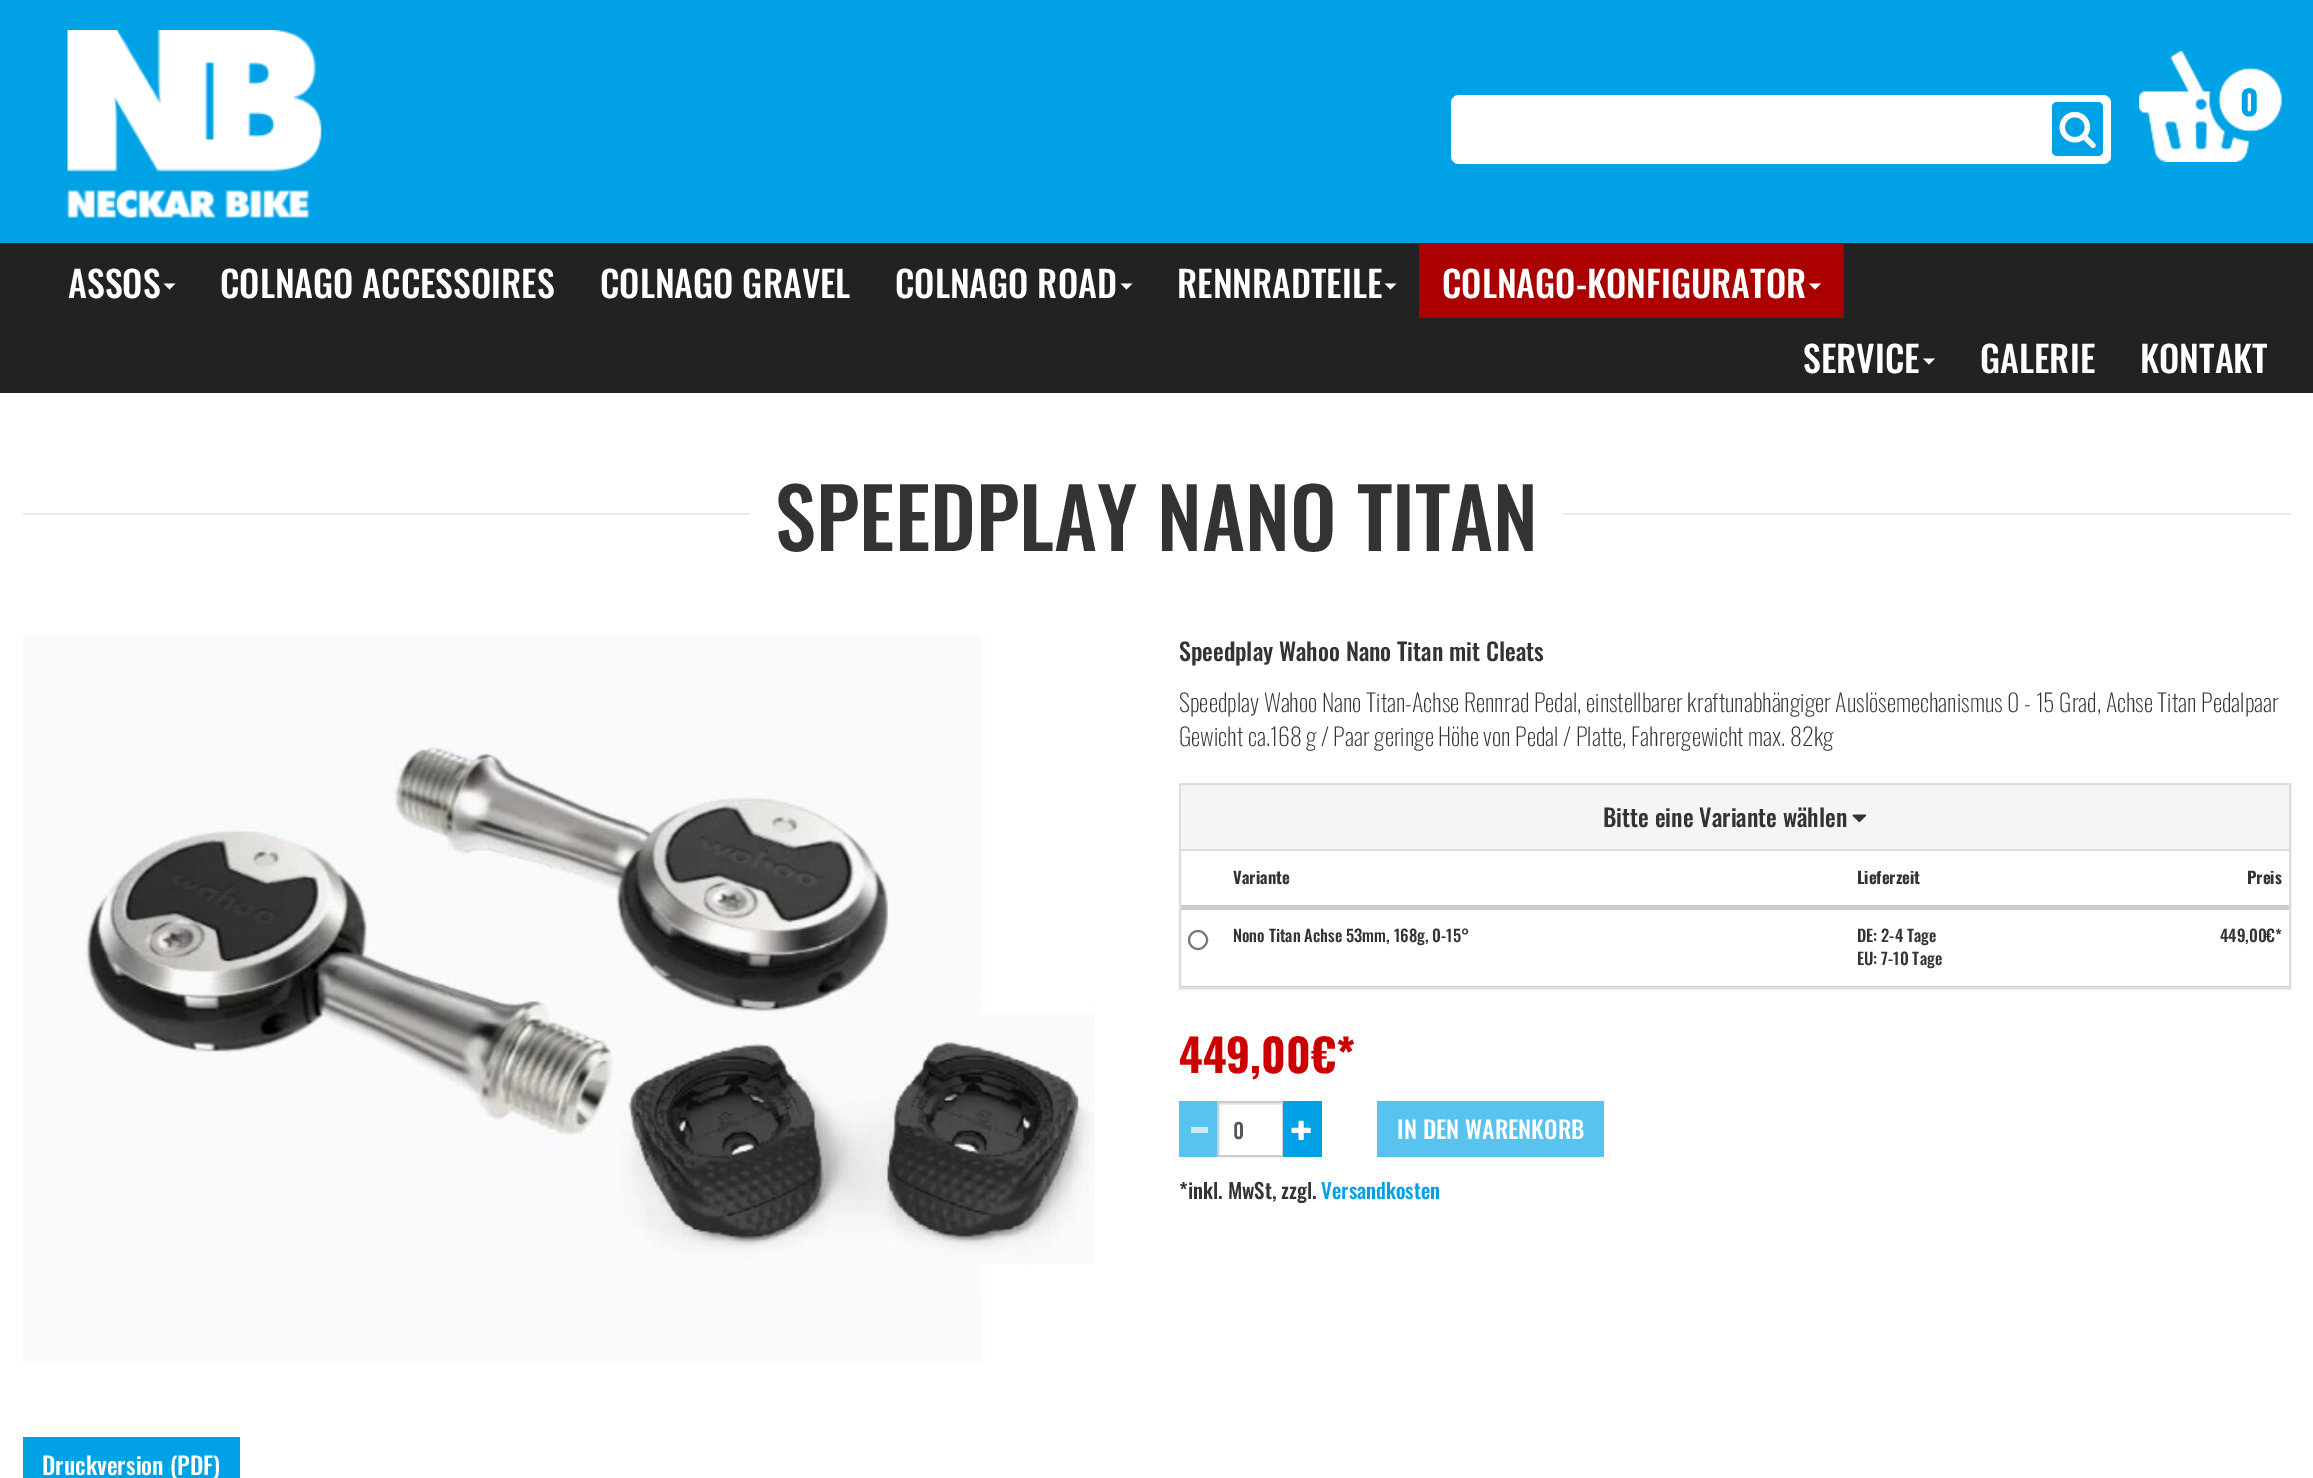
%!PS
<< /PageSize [2313 1478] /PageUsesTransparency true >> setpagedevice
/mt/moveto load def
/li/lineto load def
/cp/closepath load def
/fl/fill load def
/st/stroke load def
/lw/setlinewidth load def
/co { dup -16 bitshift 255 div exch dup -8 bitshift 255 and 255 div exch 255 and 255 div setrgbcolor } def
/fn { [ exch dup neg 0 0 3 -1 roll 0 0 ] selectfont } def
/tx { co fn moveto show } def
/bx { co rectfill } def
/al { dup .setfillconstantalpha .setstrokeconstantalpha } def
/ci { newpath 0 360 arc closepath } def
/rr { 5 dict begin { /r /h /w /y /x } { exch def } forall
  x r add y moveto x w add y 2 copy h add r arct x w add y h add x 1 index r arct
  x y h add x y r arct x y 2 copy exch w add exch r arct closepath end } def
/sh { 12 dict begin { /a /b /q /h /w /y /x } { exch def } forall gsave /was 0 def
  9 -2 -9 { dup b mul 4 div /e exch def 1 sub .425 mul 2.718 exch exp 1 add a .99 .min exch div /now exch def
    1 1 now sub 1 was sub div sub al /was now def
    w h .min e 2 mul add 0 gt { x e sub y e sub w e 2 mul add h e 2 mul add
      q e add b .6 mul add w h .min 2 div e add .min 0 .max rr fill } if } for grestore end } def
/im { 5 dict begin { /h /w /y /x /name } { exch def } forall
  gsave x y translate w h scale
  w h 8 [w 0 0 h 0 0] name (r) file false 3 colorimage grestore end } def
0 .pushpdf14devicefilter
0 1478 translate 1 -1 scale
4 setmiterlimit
0 0 2313 1478 16#FFFFFF bx
0 243 2313 150 16#222222 bx
0 0 2313 243 16#00A2E6 bx
(media/1.raw) 67 30 255 188 im
16#FFFFFF co
1451 95 660 69 8 rr fl
16#00A2E6 co
2052 102 51 54 5 rr fl
(media/2.raw) 2059 111 37 37 im
(media/3.raw) 2139 51 144 111 im
16#FFFFFF co
163.5 283.5 mt 175.5 283.5 li 169.5 289.5 li cp fl
1120.5 283.5 mt 1132.5 283.5 li 1126.5 289.5 li cp fl
1384.5 283.5 mt 1396.5 283.5 li 1390.5 289.5 li cp fl
1419 243 425 75 16#AB0000 bx
16#FFFFFF co
1809 283.5 mt 1821 283.5 li 1815 289.5 li cp fl
1923 358.5 mt 1935 358.5 li 1929 364.5 li cp fl
23 513 727 2 16#EAEAEA bx
1563 513 728 2 16#EAEAEA bx
16#000000 co
1179 785 1112 205 0 1 .05 sh
1181 851 1108 135 16#FFFFFF bx
16#DDDDDD co
2 lw
1180 784 1110 204 rectstroke
1181 787 1108 62 16#F5F5F5 bx
1181 849 1108 2 16#DDDDDD bx
(media/4.raw) 1852 814 15 9 im
1181 905 1108 5 16#CCCCCC bx
1181 986 1108 1 16#CCCCCC bx
16#767676 co
1198 940 9 ci st
1179 1101 38 56 16#59C3EF bx
1191 1127 17 6 16#C5EAF9 bx
1218 1103 65 2 16#ECECEC bx
16#CCCCCC co
1218 1102 65 54 rectstroke
1283 1101 39 56 16#00A2E6 bx
(media/5.raw) 1291 1120 20 20 im
1377 1101 227 56 16#59C3EF bx
(media/6.raw) 23 635 1072 727 im
23 1437 217 41 16#00A2E6 bx
(0) 2240 116 /Oswald-Bold 34 16#00A2E6 tx
(ASSOS) 68 298 /Oswald-Medium 36 16#FFFFFF tx
(COLNAGO ACCESSOIRES) 220 298 /Oswald-Medium 36 16#FFFFFF tx
(COLNAGO GRAVEL) 600 298 /Oswald-Medium 36 16#FFFFFF tx
(COLNAGO ROAD) 895 298 /Oswald-Medium 36 16#FFFFFF tx
(RENNRADTEILE) 1177 298 /Oswald-Medium 36 16#FFFFFF tx
(COLNAGO-KONFIGURATOR) 1442 298 /Oswald-Medium 36 16#FFFFFF tx
(SERVICE) 1803 373 /Oswald-Medium 36 16#FFFFFF tx
(GALERIE) 1980 373 /Oswald-Medium 36 16#FFFFFF tx
(KONTAKT) 2140 373 /Oswald-Medium 36 16#FFFFFF tx
(SPEEDPLAY NANO TITAN) 775 551 /Oswald-Medium 82.5 16#333333 tx
(Speedplay Wahoo Nano Titan mit Cleats) 1179 661 /Oswald-Medium 24 16#333333 tx
(Speedplay Wahoo Nano Titan-Achse Rennrad Pedal, einstellbarer kraftunabhängiger Auslösemechanismus 0 - 15 Grad, Achse Titan Pedalpaar) 1179 712 /Oswald-ExtraLight 24 16#333333 tx
(Gewicht ca.168 g / Paar geringe Höhe von Pedal / Platte, Fahrergewicht max. 82kg) 1179 746 /Oswald-ExtraLight 24 16#333333 tx
(Bitte eine Variante wählen) 1603 827 /Oswald-Medium 24 16#333333 tx
(Variante) 1233 884 /Oswald-Bold 16.5 16#333333 tx
(Lieferzeit) 1857 884 /Oswald-Bold 16.5 16#333333 tx
(Preis) 2247 884 /Oswald-Bold 16.5 16#333333 tx
(Nono Titan Achse 53mm, 168g, 0-15°) 1233 942 /Oswald-Medium 16.5 16#333333 tx
(DE: 2-4 Tage) 1857 942 /Oswald-Medium 16.5 16#333333 tx
(EU: 7-10 Tage) 1857 965 /Oswald-Medium 16.5 16#333333 tx
(449,00€*) 2220 942 /Oswald-Medium 16.5 16#333333 tx
(449,00€*) 1179 1073 /Oswald-Bold 45 16#CC0000 tx
(0) 1233 1139 /Oswald-Medium 21 16#555555 tx
(IN DEN WARENKORB) 1397 1139 /Oswald-Medium 24 16#FFFFFF tx
(*inkl. MwSt, zzgl.) 1179 1199 /Oswald-Medium 21 16#333333 tx
(Versandkosten) 1321 1199 /Oswald-Medium 21 16#00A2E6 tx
(Druckversion \(PDF\)) 42 1475 /Oswald-Medium 24 16#FFFFFF tx
.poppdf14devicefilter showpage
